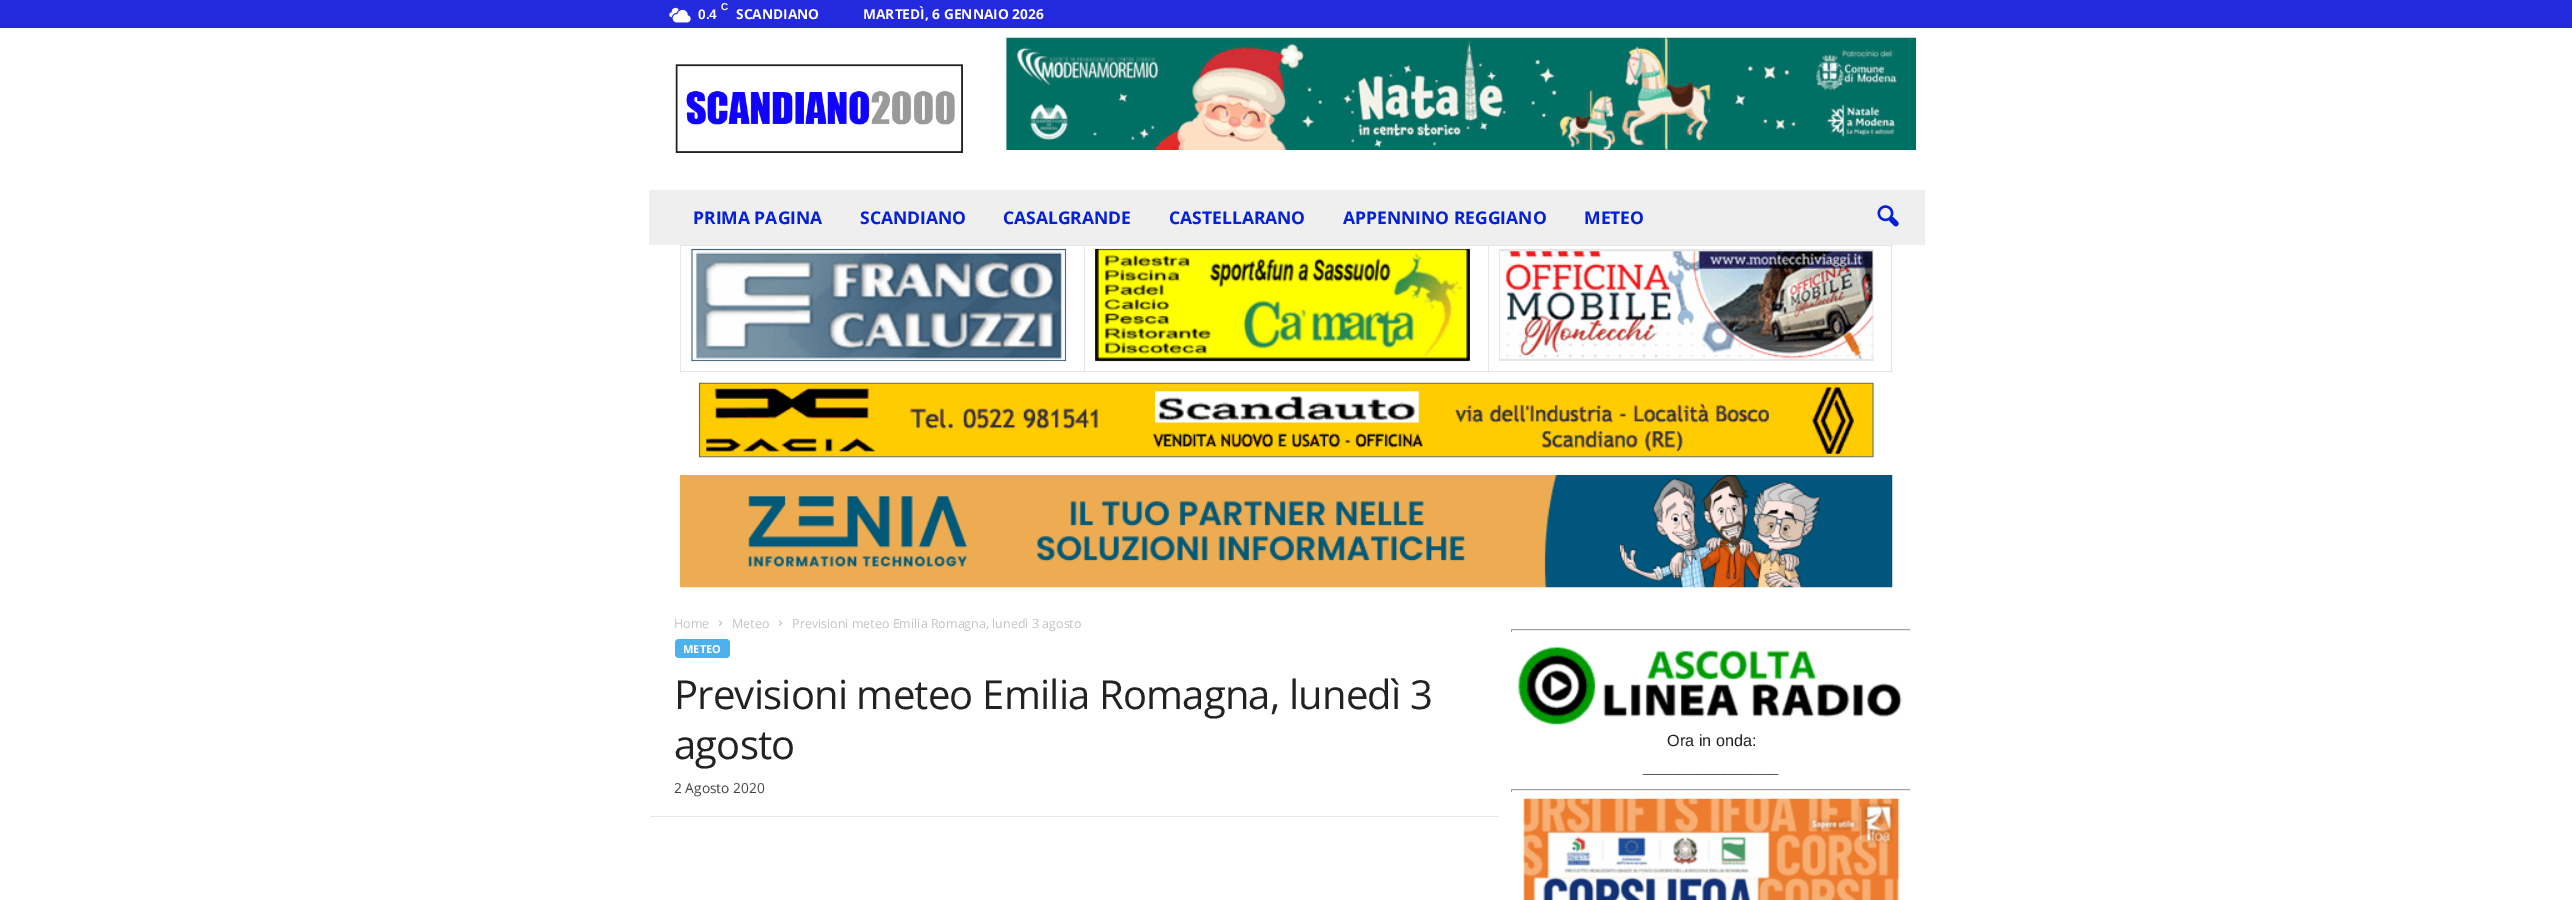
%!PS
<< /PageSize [2572 900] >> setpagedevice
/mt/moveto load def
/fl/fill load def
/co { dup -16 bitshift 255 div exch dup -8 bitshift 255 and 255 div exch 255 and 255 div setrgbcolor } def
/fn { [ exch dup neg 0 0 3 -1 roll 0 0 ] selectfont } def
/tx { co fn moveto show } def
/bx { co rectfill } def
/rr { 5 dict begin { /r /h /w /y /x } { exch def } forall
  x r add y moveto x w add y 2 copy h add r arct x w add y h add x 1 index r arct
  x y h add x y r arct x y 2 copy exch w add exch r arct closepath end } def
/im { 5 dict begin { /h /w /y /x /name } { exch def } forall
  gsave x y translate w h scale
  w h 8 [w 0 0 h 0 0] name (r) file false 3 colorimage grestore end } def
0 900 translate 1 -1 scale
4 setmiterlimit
0 0 2572 900 16#FFFFFF bx
0 0 2572 28 16#2329DD bx
(media/1.raw) 669 7 22 16 im
(media/2.raw) 675 64 288 89 im
(media/3.raw) 1006 37 911 113 im
649 190 1276 55 16#EFEFEF bx
(media/4.raw) 1877 205 22 22 im
1488 245 405 1 16#E6E6E6 bx
1891 245 1 128 16#E6E6E6 bx
1488 371 405 1 16#E6E6E6 bx
1488 245 1 128 16#E6E6E6 bx
1084 245 405 1 16#E6E6E6 bx
1084 371 405 1 16#E6E6E6 bx
1084 245 1 128 16#E6E6E6 bx
680 245 405 1 16#E6E6E6 bx
680 371 405 1 16#E6E6E6 bx
680 245 1 128 16#E6E6E6 bx
(media/5.raw) 691 248 376 114 im
(media/6.raw) 1095 248 375 114 im
(media/7.raw) 1499 249 375 112 im
(media/8.raw) 698 382 1176 76 im
(media/9.raw) 680 475 1213 113 im
(media/10.raw) 718 620 4 6 im
(media/10.raw) 778 620 4 6 im
16#4DB2EC co
675 639 55 19 4 rr fl
650 816 849 1 16#E6E6E6 bx
1511 629 400 1 16#9F9F9F bx
1910 629 1 3 16#EEEEEE bx
1511 630 400 1 16#EEEEEE bx
1511 629 1 3 16#9F9F9F bx
(media/11.raw) 1518 646 384 80 im
1511 789 400 1 16#9F9F9F bx
1910 789 1 3 16#EEEEEE bx
1511 790 400 1 16#EEEEEE bx
1511 789 1 3 16#9F9F9F bx
(media/12.raw) 1523 798 377 102 im
(C) 721 10 /LiberationSans-Bold 10 16#FFFFFF tx
(0.4) 698 19 /LiberationSans-Bold 13.75 16#FFFFFF tx
(SCANDIANO) 736 19 /OpenSans-Bold 13.75 16#FFFFFF tx
(MARTEDÌ, 6 GENNAIO 2026) 863 19 /OpenSans-Bold 13.75 16#FFFFFF tx
(PRIMA PAGINA) 693 224 /OpenSans-Bold 17.5 16#0420D8 tx
(SCANDIANO) 860 224 /OpenSans-Bold 17.5 16#0420D8 tx
(CASALGRANDE) 1003 224 /OpenSans-Bold 17.5 16#0420D8 tx
(CASTELLARANO) 1169 224 /OpenSans-Bold 17.5 16#0420D8 tx
(APPENNINO REGGIANO) 1343 224 /OpenSans-Bold 17.5 16#0420D8 tx
(METEO) 1584 224 /OpenSans-Bold 17.5 16#0420D8 tx
(Home) 674 628 /OpenSans-Regular 12.5 16#C3C3C3 tx
(Meteo) 732 628 /OpenSans-Regular 12.5 16#C3C3C3 tx
(Previsioni meteo Emilia Romagna, lunedì 3 agosto) 792 628 /OpenSans-Regular 12.5 16#C3C3C3 tx
(METEO) 683 653 /OpenSans-Bold 11 16#FFFFFF tx
/OpenSans-Regular 40 fn
16#222222 co
674 709 mt -.8 0 (Previsioni meteo Emilia Romagna, lunedì 3) ashow
674 759 mt -.8 0 (agosto) ashow
(2 Agosto 2020) 674 793 /OpenSans-Regular 13.75 16#444444 tx
(Ora in onda:) 1667 746 /LiberationSans-Regular 16.25 16#222222 tx
(_______________) 1643 773 /LiberationSans-Bold 16.25 16#222222 tx
showpage
